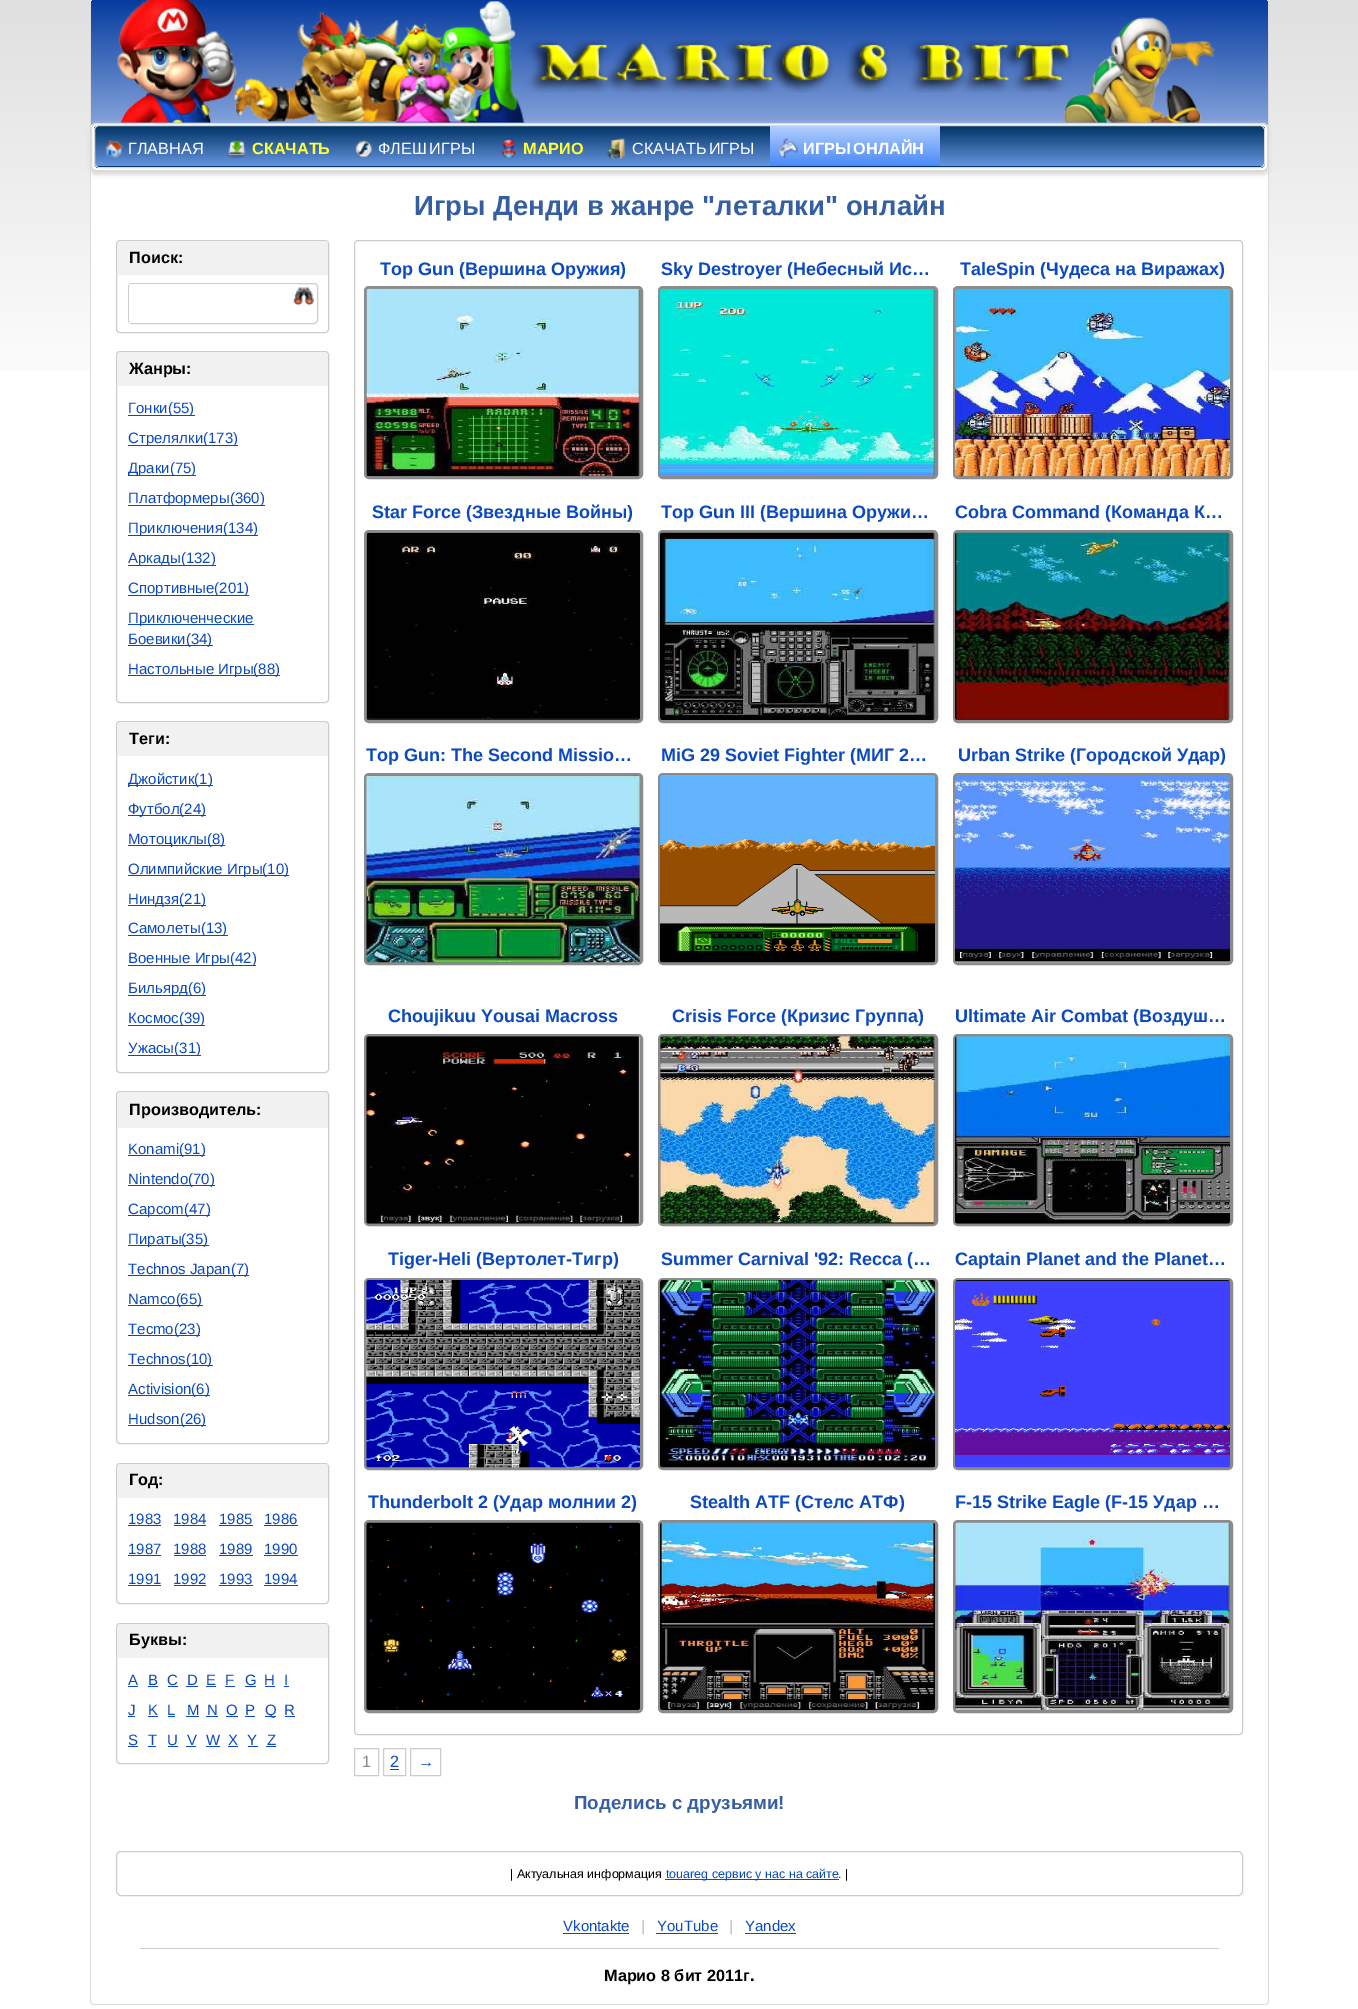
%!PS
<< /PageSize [1358 2009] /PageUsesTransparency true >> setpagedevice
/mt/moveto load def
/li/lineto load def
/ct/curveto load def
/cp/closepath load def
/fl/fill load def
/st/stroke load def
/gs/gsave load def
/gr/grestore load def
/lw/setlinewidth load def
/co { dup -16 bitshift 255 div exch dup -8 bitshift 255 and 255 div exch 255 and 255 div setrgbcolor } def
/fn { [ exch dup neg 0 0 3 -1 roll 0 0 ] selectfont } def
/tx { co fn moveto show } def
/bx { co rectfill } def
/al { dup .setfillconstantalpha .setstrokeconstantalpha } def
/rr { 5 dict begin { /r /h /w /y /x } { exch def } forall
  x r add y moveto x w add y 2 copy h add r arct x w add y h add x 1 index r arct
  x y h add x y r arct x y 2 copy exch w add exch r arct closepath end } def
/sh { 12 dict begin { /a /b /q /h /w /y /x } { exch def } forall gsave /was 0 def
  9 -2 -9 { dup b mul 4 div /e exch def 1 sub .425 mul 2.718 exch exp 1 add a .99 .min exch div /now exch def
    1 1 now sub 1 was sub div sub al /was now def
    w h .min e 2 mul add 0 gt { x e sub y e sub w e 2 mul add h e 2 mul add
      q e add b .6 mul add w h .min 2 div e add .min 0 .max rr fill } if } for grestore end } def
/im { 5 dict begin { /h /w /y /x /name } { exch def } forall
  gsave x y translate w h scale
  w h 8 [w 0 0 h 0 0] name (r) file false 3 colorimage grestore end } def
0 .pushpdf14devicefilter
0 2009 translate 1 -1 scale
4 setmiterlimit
0 0 1358 2009 16#FFFFFF bx
gs 0 0 mt 1358 0 li 1358 371 li 0 371 li cp clip newpath
<< /ShadingType 2 /ColorSpace /DeviceRGB /Coords [0 0 0 404] /Extend [true true] /Function << /FunctionType 2 /Domain [0 1] /C0 [.878 .878 .878] /C1 [1 1 1] /N 1 >> >> shfill gr
90 0 1179 2005 4 rr fl
16#DADADA co
94 0 mt 1265 0 li 1267 0 1269 2 1269 4 ct 1269 2001 li 1269 2003 1267 2005 1265 2005 ct 94 2005 li 92 2005 90 2003 90 2001 ct 90 4 li 90 2 92 0 94 0 ct cp 94 0 mt 1265 0 li 1266 0 1268 2 1268 4 ct 1268 2001 li 1268 2003 1266 2004 1265 2004 ct 94 2004 li 92 2004 91 2003 91 2001 ct 91 4 li 91 2 92 0 94 0 ct cp eofill
gs 95 0 mt 1264 0 li 1266 0 1268 2 1268 4 ct 1268 125 li 91 125 li 91 4 li 91 2 93 0 95 0 ct cp clip newpath
<< /ShadingType 2 /ColorSpace /DeviceRGB /Coords [91 0 91 125] /Extend [true true] /Function << /FunctionType 2 /Domain [0 1] /C0 [.024 .235 .624] /C1 [.522 .639 .863] /N 1 >> >> shfill gr
90 124 1179 51 6 2 1 sh
(media/1.raw) 117 0 408 123 im
(media/3.raw) 1063 17 152 106 im
(media/2.raw) 527 39 545 54 im
16#FFFFFF co
91.5 123.5 1176 47 4.5 rr gs fl gr
16#DADADA co
st
gs
94 125 1171 43 5 rr clip newpath
gs 94 126 mt 1265 126 li 1265 166 li 94 166 li cp clip newpath
<< /ShadingType 2 /ColorSpace /DeviceRGB /Coords [95 126 95 166] /Extend [true true] /Function << /FunctionType 2 /Domain [0 1] /C0 [0 .2 .4] /C1 [.4 .584 .875] /N 1 >> >> shfill gr
gs 94 166 mt 1265 166 li 1265 168 li 94 168 li cp clip newpath
<< /ShadingType 2 /ColorSpace /DeviceRGB /Coords [95 166 95 206] /Extend [true true] /Function << /FunctionType 2 /Domain [0 1] /C0 [0 .2 .4] /C1 [.4 .584 .875] /N 1 >> >> shfill gr
gr
94.5 125.5 1170 42 4.5 rr st
(media/4.raw) 105 140 18 18 im
(media/5.raw) 227 140 19 19 im
(media/6.raw) 355 140 18 18 im
(media/7.raw) 501 139 16 19 im
(media/8.raw) 607 138 19 21 im
gs 770 126 mt 940 126 li 940 166 li 770 166 li cp clip newpath
<< /ShadingType 2 /ColorSpace /DeviceRGB /Coords [855 166 855 126] /Extend [true true] /Function << /FunctionType 2 /Domain [0 1] /C0 [.286 .537 .973] /C1 [.702 .812 .992] /N 1 >> >> shfill gr
(media/9.raw) 777 138 21 20 im
16#CCCCCC co
116.5 240.5 212 92 3.5 rr st
16#F1F1F1 co
120.5 241 mt 325.5 241 li 327 241 328 242 328 243.5 ct 328 275 li 118 275 li 118 243.5 li 118 242 119 241 120.5 241 ct cp fl
16#CCCCCC co
128.5 283.5 189 40 3.5 rr st
16#FFFFFF co
129 284 169 39 2.5 rr fl
(media/10.raw) 293 287 21 19 im
16#CCCCCC co
116.5 351.5 212 351 3.5 rr st
16#F1F1F1 co
120.5 353 mt 325.5 353 li 327 353 328 354 328 355.5 ct 328 386 li 118 386 li 118 355.5 li 118 354 119 353 120.5 353 ct cp fl
128 415 67 1 16#0B49C2 bx
128 445 110 1 16#0B49C2 bx
128 475 68 1 16#0B49C2 bx
128 505 137 1 16#0B49C2 bx
128 535 130 1 16#0B49C2 bx
128 565 88 1 16#0B49C2 bx
128 595 121 1 16#0B49C2 bx
128 624 126 1 16#0B49C2 bx
128 645 85 1 16#0B49C2 bx
128 675 152 1 16#0B49C2 bx
16#CCCCCC co
116.5 721.5 212 351 3.5 rr st
16#F1F1F1 co
120.5 723 mt 325.5 723 li 327 723 328 724 328 725.5 ct 328 756 li 118 756 li 118 725.5 li 118 724 119 723 120.5 723 ct cp fl
128 785 85 1 16#0B49C2 bx
128 815 78 1 16#0B49C2 bx
128 845 97 1 16#0B49C2 bx
128 875 161 1 16#0B49C2 bx
128 905 78 1 16#0B49C2 bx
128 935 100 1 16#0B49C2 bx
128 965 128 1 16#0B49C2 bx
128 995 78 1 16#0B49C2 bx
128 1025 77 1 16#0B49C2 bx
128 1055 73 1 16#0B49C2 bx
16#CCCCCC co
116.5 1091.5 212 352 3.5 rr st
16#F1F1F1 co
120.5 1093 mt 325.5 1093 li 327 1093 328 1094 328 1095.5 ct 328 1128 li 118 1128 li 118 1095.5 li 118 1094 119 1093 120.5 1093 ct cp fl
128 1155 77 1 16#0B49C2 bx
128 1185 87 1 16#0B49C2 bx
128 1215 82 1 16#0B49C2 bx
128 1245 81 1 16#0B49C2 bx
128 1275 121 1 16#0B49C2 bx
128 1305 75 1 16#0B49C2 bx
128 1335 72 1 16#0B49C2 bx
128 1365 85 1 16#0B49C2 bx
128 1395 82 1 16#0B49C2 bx
128 1425 78 1 16#0B49C2 bx
16#CCCCCC co
116.5 1463.5 212 140 3.5 rr st
16#F1F1F1 co
120.5 1464 mt 325.5 1464 li 327 1464 328 1465 328 1466.5 ct 328 1498 li 118 1498 li 118 1466.5 li 118 1465 119 1464 120.5 1464 ct cp fl
128 1525 33 1 16#0B49C2 bx
174 1525 32 1 16#0B49C2 bx
219 1525 34 1 16#0B49C2 bx
264 1525 34 1 16#0B49C2 bx
128 1555 33 1 16#0B49C2 bx
174 1555 32 1 16#0B49C2 bx
219 1555 34 1 16#0B49C2 bx
264 1555 34 1 16#0B49C2 bx
128 1585 33 1 16#0B49C2 bx
174 1585 32 1 16#0B49C2 bx
219 1585 34 1 16#0B49C2 bx
264 1585 34 1 16#0B49C2 bx
16#CCCCCC co
116.5 1623.5 212 140 3.5 rr st
16#F1F1F1 co
120.5 1624 mt 325.5 1624 li 327 1624 328 1625 328 1626.5 ct 328 1658 li 118 1658 li 118 1626.5 li 118 1625 119 1624 120.5 1624 ct cp fl
128 1686 10 1 16#0B49C2 bx
148 1686 10 1 16#0B49C2 bx
168 1686 10 1 16#0B49C2 bx
186 1686 12 1 16#0B49C2 bx
206 1686 10 1 16#0B49C2 bx
225 1686 10 1 16#0B49C2 bx
245 1686 11 1 16#0B49C2 bx
265 1686 10 1 16#0B49C2 bx
284 1686 5 1 16#0B49C2 bx
128 1716 7 1 16#0B49C2 bx
148 1716 10 1 16#0B49C2 bx
168 1716 7 1 16#0B49C2 bx
186 1716 13 1 16#0B49C2 bx
206 1716 12 1 16#0B49C2 bx
226 1716 12 1 16#0B49C2 bx
245 1716 10 1 16#0B49C2 bx
265 1716 11 1 16#0B49C2 bx
285 1716 10 1 16#0B49C2 bx
128 1746 10 1 16#0B49C2 bx
148 1746 8 1 16#0B49C2 bx
168 1746 10 1 16#0B49C2 bx
186 1746 10 1 16#0B49C2 bx
206 1746 14 1 16#0B49C2 bx
228 1746 10 1 16#0B49C2 bx
248 1746 10 1 16#0B49C2 bx
266 1746 10 1 16#0B49C2 bx
16#CCCCCC co
354.5 240.5 888 1494 3.5 rr st
(media/11.raw) 367 289 273 187 im
16#8B8B8B co
3 lw
365.5 287.5 276 190 3.5 rr st
(media/12.raw) 366 288 274 189 im
(media/13.raw) 661 289 274 187 im
659.5 287.5 277 190 3.5 rr st
(media/14.raw) 660 288 275 189 im
(media/15.raw) 956 289 274 187 im
954.5 287.5 277 190 3.5 rr st
(media/16.raw) 955 288 275 189 im
(media/17.raw) 367 533 273 187 im
365.5 531.5 276 190 3.5 rr st
(media/18.raw) 366 532 274 188 im
(media/19.raw) 661 533 274 187 im
659.5 531.5 277 190 3.5 rr st
(media/20.raw) 660 532 275 188 im
(media/21.raw) 956 533 274 187 im
954.5 531.5 277 190 3.5 rr st
(media/22.raw) 955 532 275 188 im
(media/23.raw) 639 776 1 186 im
365.5 774.5 276 189 3.5 rr st
(media/24.raw) 366 775 274 188 im
(media/25.raw) 934 776 1 186 im
659.5 774.5 277 189 3.5 rr st
(media/26.raw) 660 775 275 188 im
(media/27.raw) 1229 776 1 186 im
954.5 774.5 277 189 3.5 rr st
(media/28.raw) 955 775 275 188 im
(media/29.raw) 639 1037 1 186 im
365.5 1035.5 276 189 3.5 rr st
(media/30.raw) 366 1036 274 188 im
(media/31.raw) 934 1037 1 186 im
659.5 1035.5 277 189 3.5 rr st
(media/32.raw) 660 1036 275 188 im
(media/33.raw) 1229 1037 1 186 im
954.5 1035.5 277 189 3.5 rr st
(media/34.raw) 955 1036 275 188 im
(media/35.raw) 639 1281 1 186 im
365.5 1279.5 276 189 3.5 rr st
(media/36.raw) 366 1280 274 188 im
(media/37.raw) 934 1281 1 186 im
659.5 1279.5 277 189 3.5 rr st
(media/38.raw) 660 1280 275 188 im
(media/39.raw) 1229 1281 1 186 im
954.5 1279.5 277 189 3.5 rr st
(media/40.raw) 955 1280 275 188 im
(media/41.raw) 367 1523 273 187 im
365.5 1521.5 276 190 3.5 rr st
(media/42.raw) 366 1522 274 188 im
(media/43.raw) 661 1523 274 187 im
659.5 1521.5 277 190 3.5 rr st
(media/44.raw) 660 1522 275 188 im
(media/45.raw) 956 1523 274 187 im
954.5 1521.5 277 190 3.5 rr st
(media/46.raw) 955 1522 275 188 im
16#CCCCCC co
1 lw
354.5 1748.5 24 27 rectstroke
383.5 1748.5 22 27 rectstroke
390 1769 9 1 16#0B49C2 bx
16#CCCCCC co
410.5 1748.5 30 27 rectstroke
116.5 1851.5 1126 44 4.5 rr st
665 1879 174 1 16#0B49C2 bx
563 1933 66 1 16#0B49C2 bx
656 1933 62 1 16#0B49C2 bx
745 1933 51 1 16#0B49C2 bx
140 1948 1079 1 16#CCCCCC bx
(ГЛАВНАЯ) 128 154 /LiberationSans-Regular 16.25 16#FFFFFF tx
(СКАЧАТЬ) 252 154 /LiberationSans-Bold 16.25 16#FFFF33 tx
/LiberationSans-Regular 16.25 fn
16#FFFFFF co
378 154 mt -2 0 32 (ФЛЕШ ИГРЫ) widthshow
(МАРИО) 523 154 /LiberationSans-Bold 16.25 16#FFFF33 tx
/LiberationSans-Regular 16.25 fn
16#FFFFFF co
632 154 mt -2 0 32 (СКАЧАТЬ ИГРЫ) widthshow
/LiberationSans-Bold 16.25 fn
803 154 mt -2 0 32 (ИГРЫ ОНЛАЙН) widthshow
(Игры Денди в жанре "леталки" онлайн) 414 215 /LiberationSans-Bold 27.5 16#365EA3 tx
(Поиск:) 129 263 /LiberationSans-Bold 16.25 16#000000 tx
(Жанры:) 129 374 /LiberationSans-Bold 16.25 16#000000 tx
(Гонки\(55\)) 128 413 /LiberationSans-Regular 15 16#0B49C2 tx
(Стрелялки\(173\)) 128 443 /LiberationSans-Regular 15 16#0B49C2 tx
(Драки\(75\)) 128 473 /LiberationSans-Regular 15 16#0B49C2 tx
(Платформеры\(360\)) 128 503 /LiberationSans-Regular 15 16#0B49C2 tx
(Приключения\(134\)) 128 533 /LiberationSans-Regular 15 16#0B49C2 tx
(Аркады\(132\)) 128 563 /LiberationSans-Regular 15 16#0B49C2 tx
(Спортивные\(201\)) 128 593 /LiberationSans-Regular 15 16#0B49C2 tx
(Приключенческие) 128 623 /LiberationSans-Regular 15 16#0B49C2 tx
(Боевики\(34\)) 128 644 /LiberationSans-Regular 15 16#0B49C2 tx
(Настольные Игры\(88\)) 128 674 /LiberationSans-Regular 15 16#0B49C2 tx
(Теги:) 129 744 /LiberationSans-Bold 16.25 16#000000 tx
(Джойстик\(1\)) 128 784 /LiberationSans-Regular 15 16#0B49C2 tx
(Футбол\(24\)) 128 814 /LiberationSans-Regular 15 16#0B49C2 tx
(Мотоциклы\(8\)) 128 844 /LiberationSans-Regular 15 16#0B49C2 tx
(Олимпийские Игры\(10\)) 128 874 /LiberationSans-Regular 15 16#0B49C2 tx
(Ниндзя\(21\)) 128 904 /LiberationSans-Regular 15 16#0B49C2 tx
(Самолеты\(13\)) 128 933 /LiberationSans-Regular 15 16#0B49C2 tx
(Военные Игры\(42\)) 128 963 /LiberationSans-Regular 15 16#0B49C2 tx
(Бильярд\(6\)) 128 993 /LiberationSans-Regular 15 16#0B49C2 tx
(Космос\(39\)) 128 1023 /LiberationSans-Regular 15 16#0B49C2 tx
(Ужасы\(31\)) 128 1053 /LiberationSans-Regular 15 16#0B49C2 tx
(Производитель:) 129 1115 /LiberationSans-Bold 16.25 16#000000 tx
(Konami\(91\)) 128 1154 /LiberationSans-Regular 15 16#0B49C2 tx
(Nintendo\(70\)) 128 1184 /LiberationSans-Regular 15 16#0B49C2 tx
(Capcom\(47\)) 128 1214 /LiberationSans-Regular 15 16#0B49C2 tx
(Пираты\(35\)) 128 1244 /LiberationSans-Regular 15 16#0B49C2 tx
(Technos Japan\(7\)) 128 1274 /LiberationSans-Regular 15 16#0B49C2 tx
(Namco\(65\)) 128 1304 /LiberationSans-Regular 15 16#0B49C2 tx
(Tecmo\(23\)) 128 1334 /LiberationSans-Regular 15 16#0B49C2 tx
(Technos\(10\)) 128 1364 /LiberationSans-Regular 15 16#0B49C2 tx
(Activision\(6\)) 128 1394 /LiberationSans-Regular 15 16#0B49C2 tx
(Hudson\(26\)) 128 1424 /LiberationSans-Regular 15 16#0B49C2 tx
(Год:) 129 1485 /LiberationSans-Bold 16.25 16#000000 tx
(1983) 128 1524 /LiberationSans-Regular 15 16#0B49C2 tx
(1984) 173 1524 /LiberationSans-Regular 15 16#0B49C2 tx
(1985) 219 1524 /LiberationSans-Regular 15 16#0B49C2 tx
(1986) 264 1524 /LiberationSans-Regular 15 16#0B49C2 tx
(1987) 128 1554 /LiberationSans-Regular 15 16#0B49C2 tx
(1988) 173 1554 /LiberationSans-Regular 15 16#0B49C2 tx
(1989) 219 1554 /LiberationSans-Regular 15 16#0B49C2 tx
(1990) 264 1554 /LiberationSans-Regular 15 16#0B49C2 tx
(1991) 128 1584 /LiberationSans-Regular 15 16#0B49C2 tx
(1992) 173 1584 /LiberationSans-Regular 15 16#0B49C2 tx
(1993) 219 1584 /LiberationSans-Regular 15 16#0B49C2 tx
(1994) 264 1584 /LiberationSans-Regular 15 16#0B49C2 tx
(Буквы:) 129 1645 /LiberationSans-Bold 16.25 16#000000 tx
(A) 128 1685 /LiberationSans-Regular 15 16#0B49C2 tx
(B) 148 1685 /LiberationSans-Regular 15 16#0B49C2 tx
(C) 167 1685 /LiberationSans-Regular 15 16#0B49C2 tx
(D) 187 1685 /LiberationSans-Regular 15 16#0B49C2 tx
(E) 206 1685 /LiberationSans-Regular 15 16#0B49C2 tx
(F) 225 1685 /LiberationSans-Regular 15 16#0B49C2 tx
(G) 245 1685 /LiberationSans-Regular 15 16#0B49C2 tx
(H) 264 1685 /LiberationSans-Regular 15 16#0B49C2 tx
(I) 284 1685 /LiberationSans-Regular 15 16#0B49C2 tx
(J) 128 1715 /LiberationSans-Regular 15 16#0B49C2 tx
(K) 148 1715 /LiberationSans-Regular 15 16#0B49C2 tx
(L) 167 1715 /LiberationSans-Regular 15 16#0B49C2 tx
(M) 187 1715 /LiberationSans-Regular 15 16#0B49C2 tx
(N) 207 1715 /LiberationSans-Regular 15 16#0B49C2 tx
(O) 226 1715 /LiberationSans-Regular 15 16#0B49C2 tx
(P) 245 1715 /LiberationSans-Regular 15 16#0B49C2 tx
(Q) 265 1715 /LiberationSans-Regular 15 16#0B49C2 tx
(R) 284 1715 /LiberationSans-Regular 15 16#0B49C2 tx
(S) 128 1745 /LiberationSans-Regular 15 16#0B49C2 tx
(T) 148 1745 /LiberationSans-Regular 15 16#0B49C2 tx
(U) 167 1745 /LiberationSans-Regular 15 16#0B49C2 tx
(V) 187 1745 /LiberationSans-Regular 15 16#0B49C2 tx
(W) 206 1745 /LiberationSans-Regular 15 16#0B49C2 tx
(X) 228 1745 /LiberationSans-Regular 15 16#0B49C2 tx
(Y) 247 1745 /LiberationSans-Regular 15 16#0B49C2 tx
(Z) 267 1745 /LiberationSans-Regular 15 16#0B49C2 tx
(Top Gun \(Вершина Оружия\)) 380 275 /LiberationSans-Bold 18 16#0B49C2 tx
(Sky Destroyer \(Небесный Ис…) 661 275 /LiberationSans-Bold 18 16#0B49C2 tx
(TaleSpin \(Чудеса на Виражах\)) 960 275 /LiberationSans-Bold 18 16#0B49C2 tx
(Star Force \(Звездные Войны\)) 372 518 /LiberationSans-Bold 18 16#0B49C2 tx
(Top Gun III \(Вершина Оружи…) 661 518 /LiberationSans-Bold 18 16#0B49C2 tx
(Cobra Command \(Команда К…) 955 518 /LiberationSans-Bold 18 16#0B49C2 tx
(Top Gun: The Second Missio…) 366 761 /LiberationSans-Bold 18 16#0B49C2 tx
(MiG 29 Soviet Fighter \(МИГ 2…) 661 761 /LiberationSans-Bold 18 16#0B49C2 tx
(Urban Strike \(Городской Удар\)) 958 761 /LiberationSans-Bold 18 16#0B49C2 tx
(Choujikuu Yousai Macross) 388 1022 /LiberationSans-Bold 18 16#0B49C2 tx
(Crisis Force \(Кризис Группа\)) 672 1022 /LiberationSans-Bold 18 16#0B49C2 tx
(Ultimate Air Combat \(Воздуш…) 955 1022 /LiberationSans-Bold 18 16#0B49C2 tx
(Tiger-Heli \(Вертолет-Тигр\)) 388 1265 /LiberationSans-Bold 18 16#0B49C2 tx
(Summer Carnival '92: Recca \(…) 661 1265 /LiberationSans-Bold 18 16#0B49C2 tx
(Captain Planet and the Planet…) 955 1265 /LiberationSans-Bold 18 16#0B49C2 tx
(Thunderbolt 2 \(Удар молнии 2\)) 368 1508 /LiberationSans-Bold 18 16#0B49C2 tx
(Stealth ATF \(Стелс АТФ\)) 690 1508 /LiberationSans-Bold 18 16#0B49C2 tx
(F-15 Strike Eagle \(F-15 Удар …) 955 1508 /LiberationSans-Bold 18 16#0B49C2 tx
(1) 362 1767 /LiberationSans-Regular 16.25 16#8B8B8B tx
(2) 390 1767 /LiberationSans-Regular 16.25 16#0B49C2 tx
(→) 418 1767 /LiberationSerif-Regular 16.25 16#0B49C2 tx
(Поделись с друзьями!) 574 1809 /LiberationSans-Bold 18.75 16#365EA3 tx
(| Актуальная информация) 510 1878 /LiberationSans-Regular 12.5 16#000000 tx
(touareg сервис у нас на сайте) 666 1878 /LiberationSans-Regular 12.5 16#0B49C2 tx
(. |) 838 1878 /LiberationSans-Regular 12.5 16#000000 tx
(Vkontakte) 563 1931 /LiberationSans-Regular 15 16#0B49C2 tx
(|) 641 1931 /LiberationSans-Bold 15 16#CCCCCC tx
(YouTube) 657 1931 /LiberationSans-Regular 15 16#0B49C2 tx
(|) 729 1931 /LiberationSans-Bold 15 16#CCCCCC tx
(Yandex) 745 1931 /LiberationSans-Regular 15 16#0B49C2 tx
(Марио 8 бит 2011г.) 604 1981 /LiberationSans-Bold 16.25 16#000000 tx
.poppdf14devicefilter showpage
